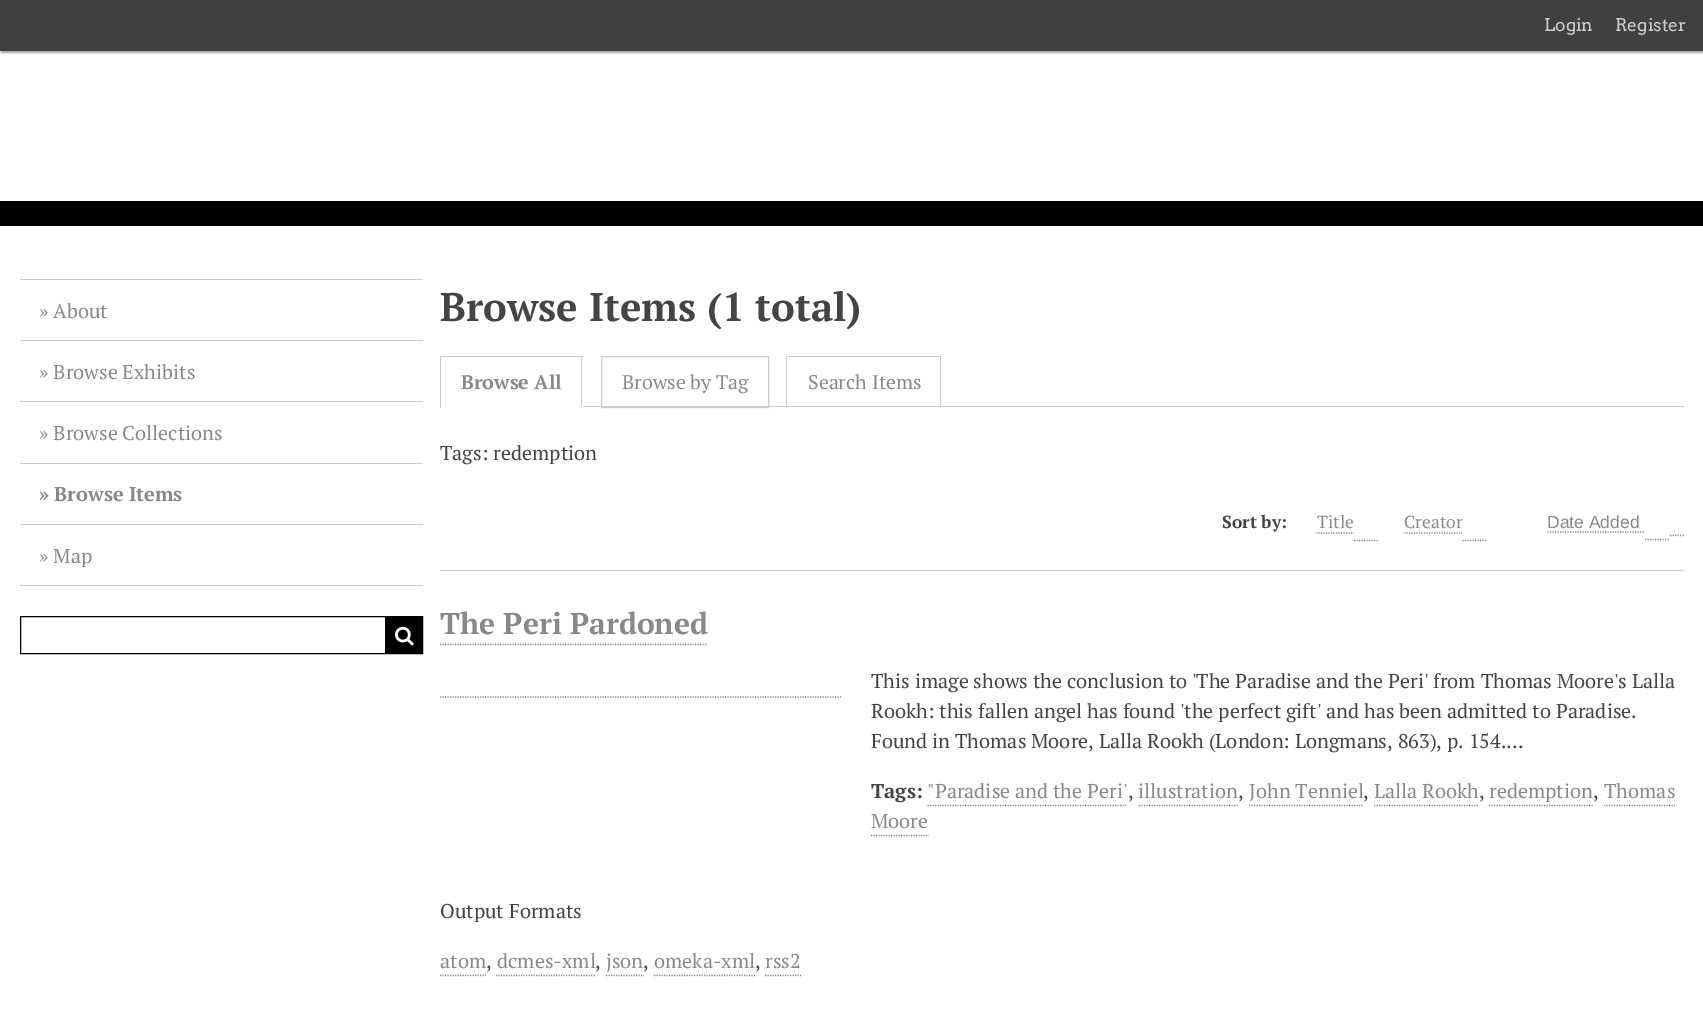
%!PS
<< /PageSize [1703 1020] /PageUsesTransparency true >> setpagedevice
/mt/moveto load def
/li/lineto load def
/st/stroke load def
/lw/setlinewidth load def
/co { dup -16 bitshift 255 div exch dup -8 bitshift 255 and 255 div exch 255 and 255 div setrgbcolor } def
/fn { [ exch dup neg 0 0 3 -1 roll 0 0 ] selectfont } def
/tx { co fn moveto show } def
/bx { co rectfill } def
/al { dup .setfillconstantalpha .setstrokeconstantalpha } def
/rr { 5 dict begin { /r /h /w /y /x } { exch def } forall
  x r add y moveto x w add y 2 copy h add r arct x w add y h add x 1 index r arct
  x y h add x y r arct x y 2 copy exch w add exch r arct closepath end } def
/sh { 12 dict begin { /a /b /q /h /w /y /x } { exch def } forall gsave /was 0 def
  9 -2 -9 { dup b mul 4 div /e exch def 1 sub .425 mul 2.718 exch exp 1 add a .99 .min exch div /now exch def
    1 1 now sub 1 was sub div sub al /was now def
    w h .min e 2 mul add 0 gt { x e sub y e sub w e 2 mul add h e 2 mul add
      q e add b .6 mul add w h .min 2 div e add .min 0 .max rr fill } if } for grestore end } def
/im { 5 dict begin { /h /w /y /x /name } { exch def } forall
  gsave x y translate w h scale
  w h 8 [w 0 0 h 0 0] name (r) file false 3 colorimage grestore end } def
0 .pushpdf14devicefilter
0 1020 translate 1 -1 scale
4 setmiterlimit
0 0 1703 1020 16#FFFFFF bx
16#000000 co
1 1 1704 52 0 1 .35 sh
0 0 1703 51 16#404040 bx
0 201 1703 25 16#000000 bx
20 279 403 1 16#CCCCCC bx
20 340 403 1 16#CCCCCC bx
20 401 403 1 16#CCCCCC bx
20 463 403 1 16#CCCCCC bx
20 524 403 1 16#CCCCCC bx
20 585 403 1 16#CCCCCC bx
16#000000 co
20.5 616.5 402 37 rectstroke
385 617 37 36 16#000000 bx
(media/1.raw) 395 626 19 20 im
583 406 1101 1 16#CCCCCC bx
440 356 143 1 16#CCCCCC bx
581 356 1 52 16#CCCCCC bx
581 406 2 1 16#FFFFFF bx
440 356 1 52 16#CCCCCC bx
601.5 356.5 167 51 rectstroke
786 356 155 1 16#CCCCCC bx
940 356 1 50 16#CCCCCC bx
786 356 1 50 16#CCCCCC bx
16#888888 co
1.2 lw
[1.25 1.25] 0 setdash
1316 533 mt 1354 533 li 1354 540.5 mt 1379 540.5 li st
1404 533 mt 1462.5 533 li st
1462.5 540.5 mt 1487.5 540.5 li st
1547.5 532 mt 1645 532 li st
1645 539.5 mt 1670 539.5 li 1670 535.5 mt 1684 535.5 li st
440 570 1244 1 16#CCCCCC bx
16#888888 co
440 644.5 mt 707.5 644.5 li st
440 697 mt 841 697 li st
927.5 805.5 mt 1127.5 805.5 li st
1139 805.5 mt 1237.5 805.5 li st
1249 805.5 mt 1364 805.5 li st
1374 805.5 mt 1479 805.5 li st
1489 805.5 mt 1594 805.5 li st
1604 805.5 mt 1675 805.5 li st
871 835.5 mt 929 835.5 li st
440 975.5 mt 486 975.5 li st
496 975.5 mt 595 975.5 li st
606 975.5 mt 644 975.5 li st
654 975.5 mt 755 975.5 li st
765 975.5 mt 801 975.5 li st
(Login) 1544 31 /Arvo-Regular 17.5 16#CCCCCC tx
(Register) 1615 31 /Arvo-Regular 17.5 16#CCCCCC tx
(» About) 39 318 /PTSerif-Regular 20 16#888888 tx
(» Browse Exhibits) 39 379 /PTSerif-Regular 20 16#888888 tx
(» Browse Collections) 39 440 /PTSerif-Regular 20 16#888888 tx
(» Browse Items) 39 501 /PTSerif-Bold 20 16#888888 tx
(» Map) 39 563 /PTSerif-Regular 20 16#888888 tx
(Browse Items \(1 total\)) 440 321 /PTSerif-Bold 40 16#444444 tx
(Browse All) 461 389 /PTSerif-Bold 19.75 16#888888 tx
(Browse by Tag) 622 389 /PTSerif-Regular 19.75 16#888888 tx
(Search Items) 808 389 /PTSerif-Regular 19.75 16#888888 tx
(Tags: redemption) 440 460 /PTSerif-Regular 20 16#444444 tx
(Sort by:) 1222 528 /PTSerif-Bold 17.5 16#444444 tx
(Title) 1317 528 /PTSerif-Regular 17.5 16#888888 tx
(Creator) 1404 528 /PTSerif-Regular 17.5 16#888888 tx
(Date Added) 1547 528 /LiberationSans-Regular 17.5 16#888888 tx
() 1674 528 /FontAwesome-Regular 17.5 16#888888 tx
(The Peri Pardoned) 440 634 /PTSerif-Bold 30 16#888888 tx
(This image shows the conclusion to 'The Paradise and the Peri' from Thomas Moore's Lalla) 871 688 /PTSerif-Regular 20 16#444444 tx
(Rookh: this fallen angel has found 'the perfect gift' and has been admitted to Paradise.) 871 718 /PTSerif-Regular 20 16#444444 tx
(Found in Thomas Moore, Lalla Rookh \(London: Longmans, 863\), p. 154.…) 871 748 /PTSerif-Regular 20 16#444444 tx
(Tags:) 871 798 /PTSerif-Bold 20 16#444444 tx
("Paradise and the Peri') 927 798 /PTSerif-Regular 20 16#888888 tx
(,) 1128 798 /PTSerif-Regular 20 16#444444 tx
(illustration) 1138 798 /PTSerif-Regular 20 16#888888 tx
(,) 1238 798 /PTSerif-Regular 20 16#444444 tx
(John Tenniel) 1249 798 /PTSerif-Regular 20 16#888888 tx
(,) 1363 798 /PTSerif-Regular 20 16#444444 tx
(Lalla Rookh) 1374 798 /PTSerif-Regular 20 16#888888 tx
(,) 1479 798 /PTSerif-Regular 20 16#444444 tx
(redemption) 1489 798 /PTSerif-Regular 20 16#888888 tx
(,) 1593 798 /PTSerif-Regular 20 16#444444 tx
(Thomas) 1604 798 /PTSerif-Regular 20 16#888888 tx
(Moore) 871 828 /PTSerif-Regular 20 16#888888 tx
(Output Formats) 440 918 /PTSerif-Regular 20 16#444444 tx
(atom) 440 968 /PTSerif-Regular 20 16#888888 tx
(,) 486 968 /PTSerif-Regular 20 16#444444 tx
(dcmes-xml) 497 968 /PTSerif-Regular 20 16#888888 tx
(,) 595 968 /PTSerif-Regular 20 16#444444 tx
(json) 606 968 /PTSerif-Regular 20 16#888888 tx
(,) 643 968 /PTSerif-Regular 20 16#444444 tx
(omeka-xml) 654 968 /PTSerif-Regular 20 16#888888 tx
(,) 755 968 /PTSerif-Regular 20 16#444444 tx
(rss2) 765 968 /PTSerif-Regular 20 16#888888 tx
.poppdf14devicefilter showpage
